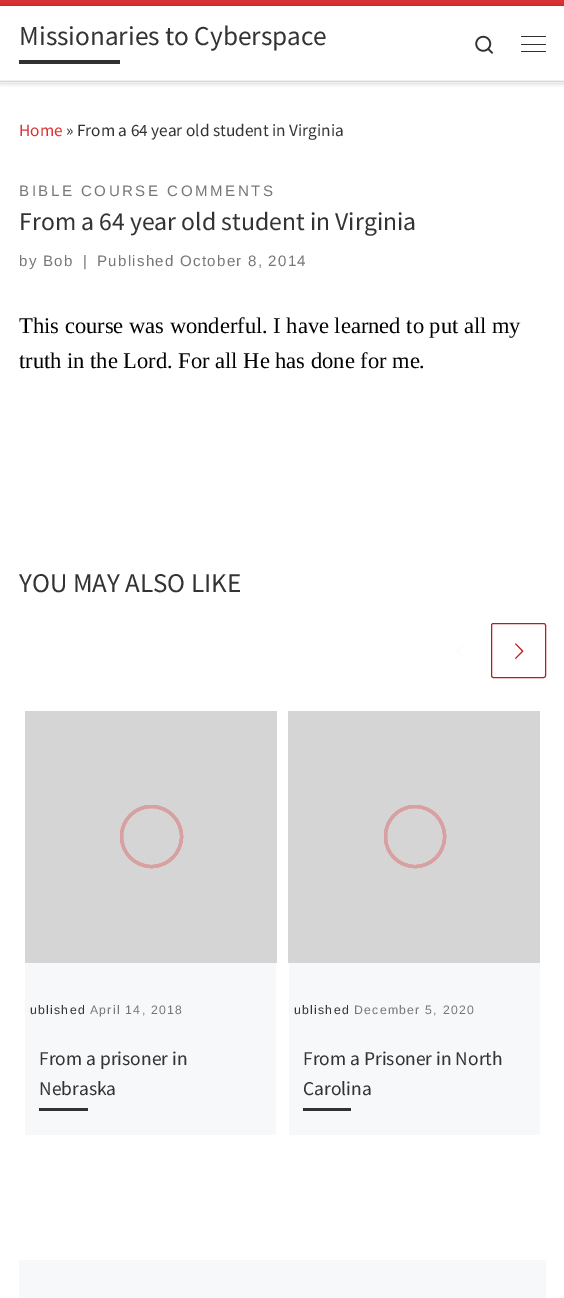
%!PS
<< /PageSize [564 1298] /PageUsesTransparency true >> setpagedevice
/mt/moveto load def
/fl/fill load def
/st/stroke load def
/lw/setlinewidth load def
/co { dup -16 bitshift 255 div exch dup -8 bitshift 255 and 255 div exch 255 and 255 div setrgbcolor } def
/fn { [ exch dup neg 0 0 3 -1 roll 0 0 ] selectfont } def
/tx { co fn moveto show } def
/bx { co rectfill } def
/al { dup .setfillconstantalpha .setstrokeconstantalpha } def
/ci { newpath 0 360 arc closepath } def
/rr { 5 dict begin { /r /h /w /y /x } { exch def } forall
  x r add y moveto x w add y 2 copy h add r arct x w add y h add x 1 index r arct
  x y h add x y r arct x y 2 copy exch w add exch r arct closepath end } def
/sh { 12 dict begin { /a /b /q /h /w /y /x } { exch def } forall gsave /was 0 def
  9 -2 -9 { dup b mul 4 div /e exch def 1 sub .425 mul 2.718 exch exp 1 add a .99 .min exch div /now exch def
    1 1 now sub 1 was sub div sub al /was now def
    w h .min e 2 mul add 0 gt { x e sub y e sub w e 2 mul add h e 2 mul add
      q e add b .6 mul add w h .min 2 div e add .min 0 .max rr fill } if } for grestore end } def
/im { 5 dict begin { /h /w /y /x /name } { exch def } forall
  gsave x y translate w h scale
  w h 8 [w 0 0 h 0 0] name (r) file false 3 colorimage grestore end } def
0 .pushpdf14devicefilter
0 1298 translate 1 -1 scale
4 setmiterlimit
0 0 564 1298 16#FFFFFF bx
16#666666 co
0 3 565 82 0 1 .08 sh
0 82 564 1 16#FFFFFF bx
0 0 564 6 16#DD3333 bx
0 81 564 1 16#ECECEC bx
0.15 al
0 81 564 1 16#FFFFFF bx
1 al
16#000000 co
0 6 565 75 0 3 .2 sh
0 6 564 74 16#FFFFFF bx
19 60 101 4 16#313131 bx
(media/1.raw) 475 35 19 19 im
521 36 25 1 .5 rr fl
521 44 25 1 .5 rr fl
521 51 25 1 .5 rr fl
0 80 564 1 16#F0F0F0 bx
(media/2.raw) 457 644 7 14 im
16#B51E1E co
491.5 623.5 54 54 2 rr st
(media/3.raw) 515 643 9 16 im
25 963 251 172 16#F7F8F9 bx
25 711 252 252 16#D5D5D5 bx
16#D8A0A0 co
3 lw
151.5 836.5 30 ci st
151.5 836.5 30 ci st
151.5 836.5 30 ci st
39 1108 49 3 16#313131 bx
289 963 251 172 16#F7F8F9 bx
288 711 252 252 16#D5D5D5 bx
16#D8A0A0 co
385.5 806.5 59 60 29.5 rr st
385.5 806.5 59 60 29.5 rr st
385.5 806.5 59 60 29.5 rr st
303 1108 48 3 16#313131 bx
19 1260 527 38 16#F7F8F9 bx
(Missionaries to Cyberspace) 19 45 /SourceSansPro-Regular 27.25 16#333333 tx
(Home) 19 136 /SourceSansPro-Regular 17.25 16#DD3333 tx
(» From a 64 year old student in Virginia) 66 136 /SourceSansPro-Regular 17.25 16#333333 tx
/LiberationSans-Regular 15.1 fn
16#777777 co
19 196 mt 2.5 0 (BIBLE COURSE COMMENTS) ashow
(From a 64 year old student in Virginia) 19 230 /SourceSansPro-Regular 25.7 16#333333 tx
/LiberationSans-Regular 15.1 fn
16#777777 co
19 266 mt 1.25 0 (by Bob) ashow
83 266 mt 1.25 0 (|) ashow
97 266 mt 1.25 0 (Published October 8, 2014) ashow
(This course was wonderful. I have learned to put all my) 19 333 /LiberationSerif-Regular 22.5 16#000000 tx
(truth in the Lord. For all He has done for me.) 19 368 /LiberationSerif-Regular 22.5 16#000000 tx
(YOU MAY ALSO LIKE) 19 592 /SourceSansPro-Regular 27 16#333333 tx
/LiberationSans-Regular 12.25 fn
30 1014 mt 1.25 0 (ublished) ashow
16#777777 co
90 1014 mt 1.25 0 (April 14, 2018) ashow
(From a prisoner in) 39 1065 /SourceSansPro-Regular 19.5 16#333333 tx
(Nebraska) 39 1095 /SourceSansPro-Regular 19.5 16#333333 tx
/LiberationSans-Regular 12.25 fn
294 1014 mt 1.25 0 (ublished) ashow
16#777777 co
354 1014 mt 1.25 0 (December 5, 2020) ashow
(From a Prisoner in North) 303 1065 /SourceSansPro-Regular 19.5 16#333333 tx
(Carolina) 303 1095 /SourceSansPro-Regular 19.5 16#333333 tx
.poppdf14devicefilter showpage
